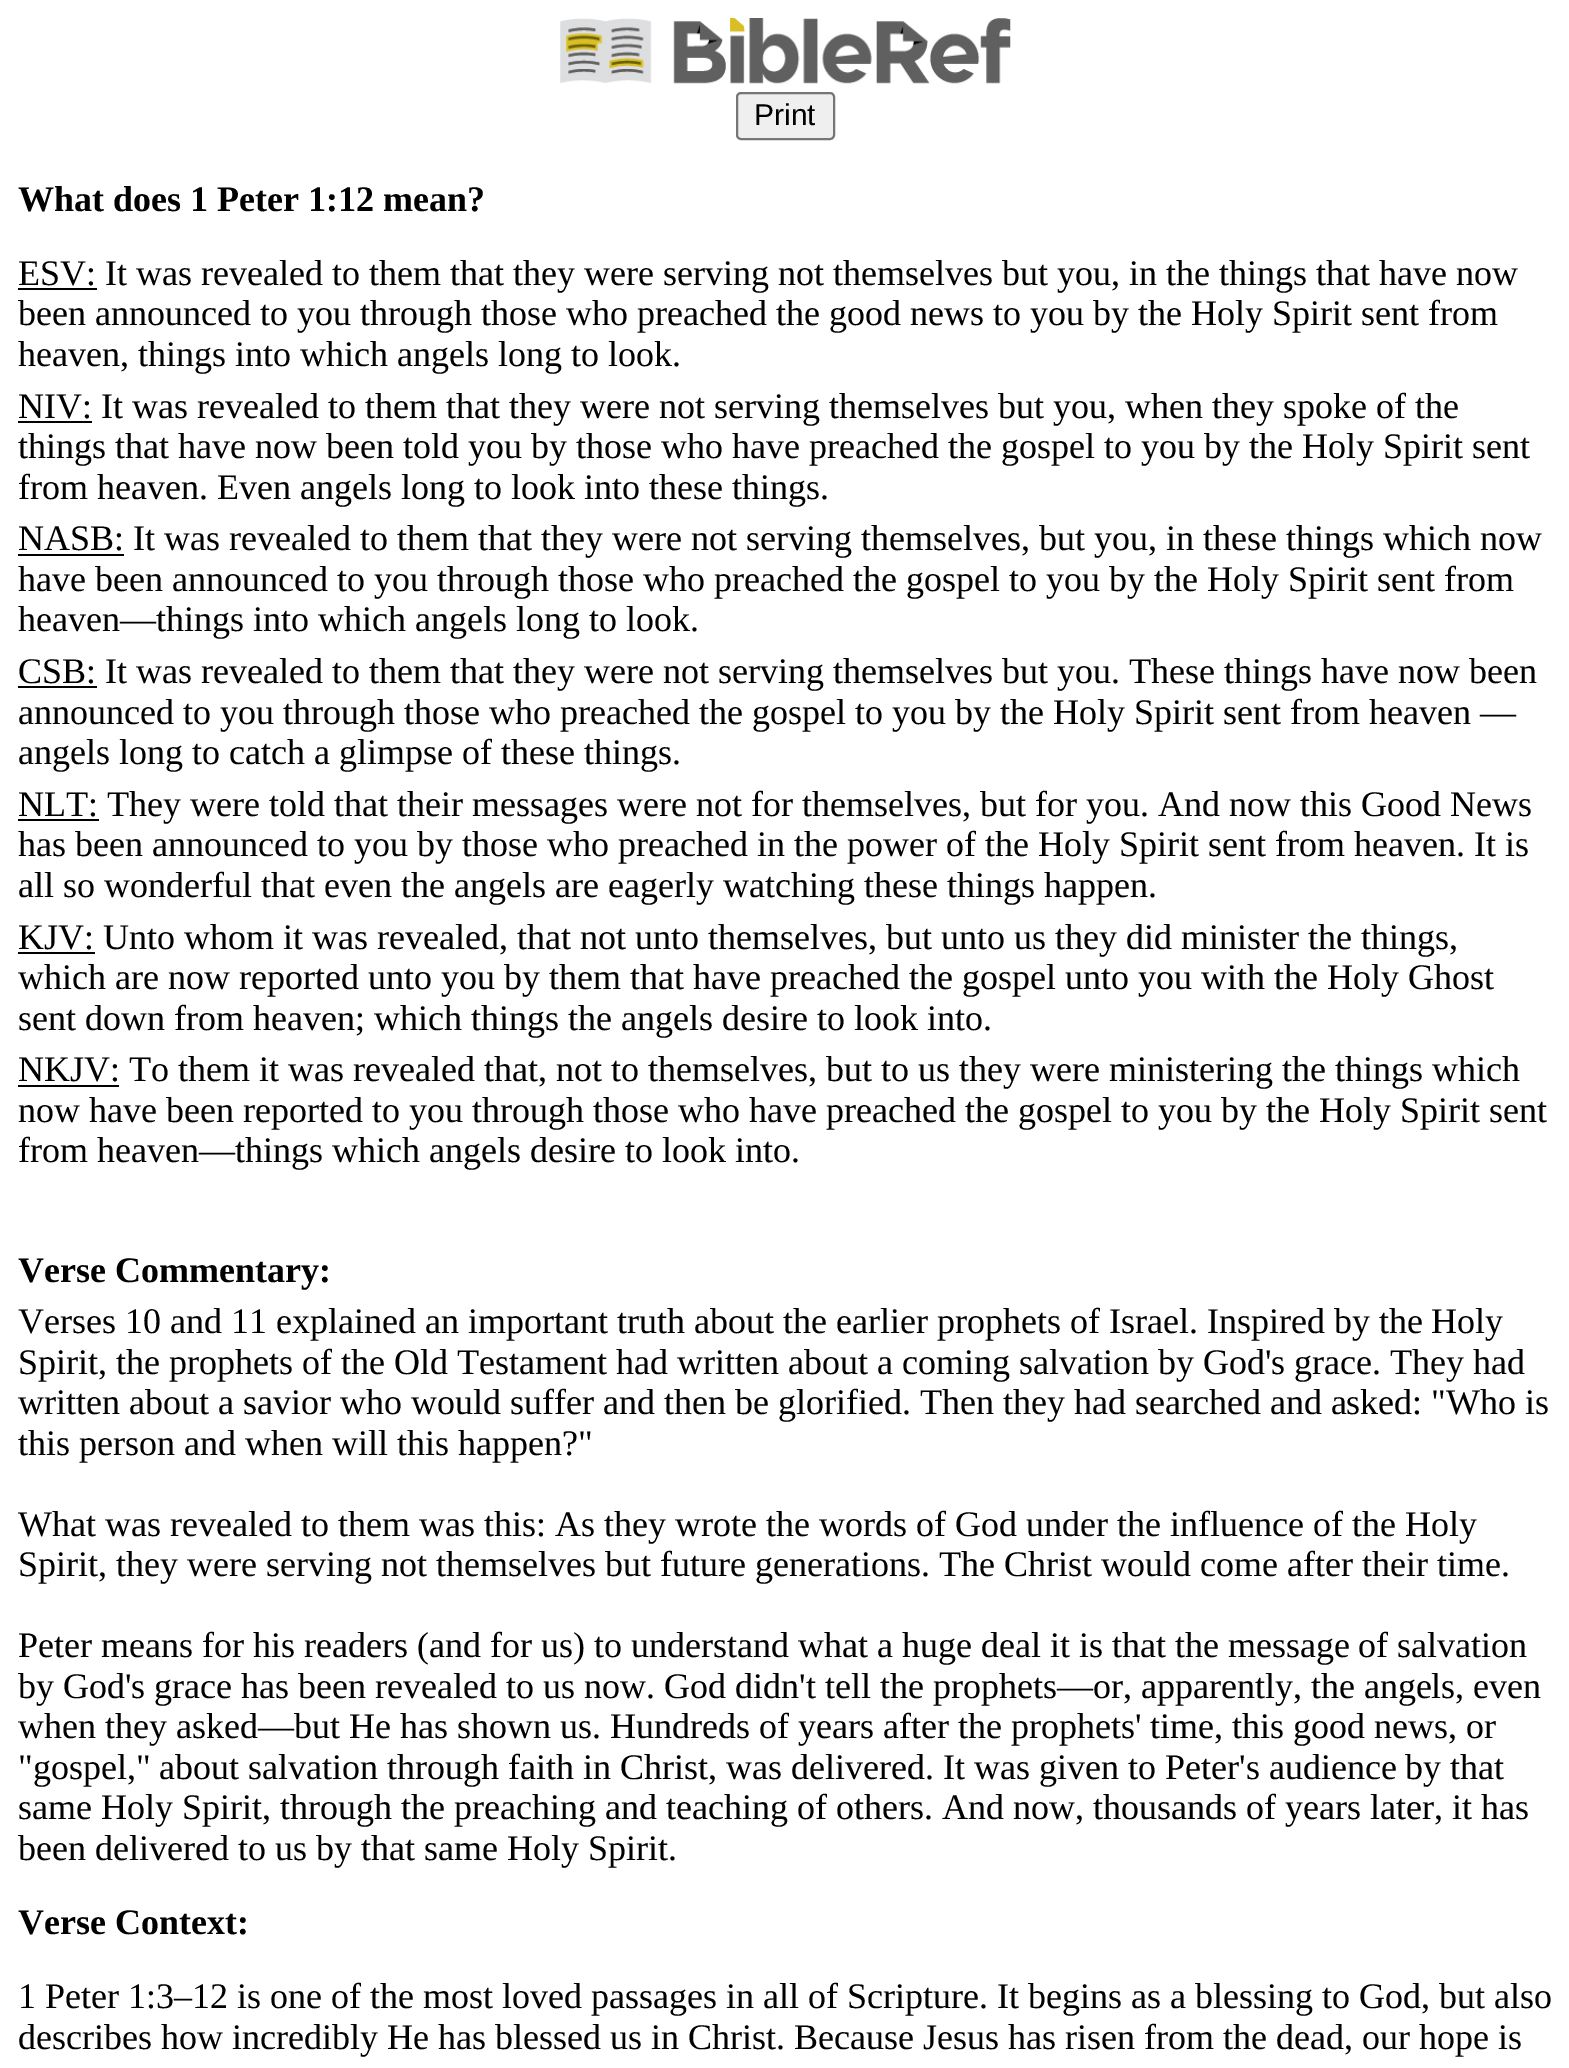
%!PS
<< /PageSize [1569 2068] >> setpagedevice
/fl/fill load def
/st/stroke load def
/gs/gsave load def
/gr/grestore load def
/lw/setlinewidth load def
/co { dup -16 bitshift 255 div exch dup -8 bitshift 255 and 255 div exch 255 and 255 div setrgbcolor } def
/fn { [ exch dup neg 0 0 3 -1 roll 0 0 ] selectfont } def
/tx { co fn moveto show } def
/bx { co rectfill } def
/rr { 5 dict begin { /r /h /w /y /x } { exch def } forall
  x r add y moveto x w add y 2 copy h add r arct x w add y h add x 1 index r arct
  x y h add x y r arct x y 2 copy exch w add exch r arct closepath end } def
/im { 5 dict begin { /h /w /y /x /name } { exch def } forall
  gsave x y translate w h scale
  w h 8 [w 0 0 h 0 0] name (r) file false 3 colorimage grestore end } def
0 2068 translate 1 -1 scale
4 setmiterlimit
0 0 1569 2068 16#FFFFFF bx
(media/1.raw) 560 18 451 66 im
16#EFEFEF co
737 93 97 46 4 rr gs fl gr
16#767676 co
2 lw
st
18 288 79 2 16#000000 bx
18 421 74 2 16#000000 bx
18 554 106 2 16#000000 bx
18 686 79 2 16#000000 bx
18 819 81 2 16#000000 bx
18 952 77 2 16#000000 bx
18 1085 101 2 16#000000 bx
(Print) 754 125 /LiberationSans-Regular 30 16#000000 tx
(What does 1 Peter 1:12 mean?) 18 211 /LiberationSerif-Bold 36 16#000000 tx
(ESV: It was revealed to them that they were serving not themselves but you, in the things that have now) 18 285 /LiberationSerif-Regular 36 16#000000 tx
(been announced to you through those who preached the good news to you by the Holy Spirit sent from) 18 325 /LiberationSerif-Regular 36 16#000000 tx
(heaven, things into which angels long to look.) 18 366 /LiberationSerif-Regular 36 16#000000 tx
(NIV: It was revealed to them that they were not serving themselves but you, when they spoke of the) 18 418 /LiberationSerif-Regular 36 16#000000 tx
(things that have now been told you by those who have preached the gospel to you by the Holy Spirit sent) 18 458 /LiberationSerif-Regular 36 16#000000 tx
(from heaven. Even angels long to look into these things.) 18 499 /LiberationSerif-Regular 36 16#000000 tx
(NASB: It was revealed to them that they were not serving themselves, but you, in these things which now) 18 550 /LiberationSerif-Regular 36 16#000000 tx
(have been announced to you through those who preached the gospel to you by the Holy Spirit sent from) 18 591 /LiberationSerif-Regular 36 16#000000 tx
(heaven—things into which angels long to look.) 18 631 /LiberationSerif-Regular 36 16#000000 tx
(CSB: It was revealed to them that they were not serving themselves but you. These things have now been) 18 683 /LiberationSerif-Regular 36 16#000000 tx
(announced to you through those who preached the gospel to you by the Holy Spirit sent from heaven —) 18 724 /LiberationSerif-Regular 36 16#000000 tx
(angels long to catch a glimpse of these things.) 18 764 /LiberationSerif-Regular 36 16#000000 tx
(NLT: They were told that their messages were not for themselves, but for you. And now this Good News) 18 816 /LiberationSerif-Regular 36 16#000000 tx
(has been announced to you by those who preached in the power of the Holy Spirit sent from heaven. It is) 18 856 /LiberationSerif-Regular 36 16#000000 tx
(all so wonderful that even the angels are eagerly watching these things happen.) 18 897 /LiberationSerif-Regular 36 16#000000 tx
(KJV: Unto whom it was revealed, that not unto themselves, but unto us they did minister the things,) 18 949 /LiberationSerif-Regular 36 16#000000 tx
(which are now reported unto you by them that have preached the gospel unto you with the Holy Ghost) 18 989 /LiberationSerif-Regular 36 16#000000 tx
(sent down from heaven; which things the angels desire to look into.) 18 1030 /LiberationSerif-Regular 36 16#000000 tx
(NKJV: To them it was revealed that, not to themselves, but to us they were ministering the things which) 18 1081 /LiberationSerif-Regular 36 16#000000 tx
(now have been reported to you through those who have preached the gospel to you by the Holy Spirit sent) 18 1122 /LiberationSerif-Regular 36 16#000000 tx
(from heaven—things which angels desire to look into.) 18 1162 /LiberationSerif-Regular 36 16#000000 tx
(Verse Commentary:) 18 1282 /LiberationSerif-Bold 36 16#000000 tx
(Verses 10 and 11 explained an important truth about the earlier prophets of Israel. Inspired by the Holy) 18 1333 /LiberationSerif-Regular 36 16#000000 tx
(Spirit, the prophets of the Old Testament had written about a coming salvation by God's grace. They had) 18 1374 /LiberationSerif-Regular 36 16#000000 tx
(written about a savior who would suffer and then be glorified. Then they had searched and asked: "Who is) 18 1414 /LiberationSerif-Regular 36 16#000000 tx
(this person and when will this happen?") 18 1455 /LiberationSerif-Regular 36 16#000000 tx
(What was revealed to them was this: As they wrote the words of God under the influence of the Holy) 18 1536 /LiberationSerif-Regular 36 16#000000 tx
(Spirit, they were serving not themselves but future generations. The Christ would come after their time.) 18 1576 /LiberationSerif-Regular 36 16#000000 tx
(Peter means for his readers \(and for us\) to understand what a huge deal it is that the message of salvation) 18 1657 /LiberationSerif-Regular 36 16#000000 tx
(by God's grace has been revealed to us now. God didn't tell the prophets—or, apparently, the angels, even) 18 1698 /LiberationSerif-Regular 36 16#000000 tx
(when they asked—but He has shown us. Hundreds of years after the prophets' time, this good news, or) 18 1738 /LiberationSerif-Regular 36 16#000000 tx
("gospel," about salvation through faith in Christ, was delivered. It was given to Peter's audience by that) 18 1779 /LiberationSerif-Regular 36 16#000000 tx
(same Holy Spirit, through the preaching and teaching of others. And now, thousands of years later, it has) 18 1819 /LiberationSerif-Regular 36 16#000000 tx
(been delivered to us by that same Holy Spirit.) 18 1860 /LiberationSerif-Regular 36 16#000000 tx
(Verse Context:) 18 1934 /LiberationSerif-Bold 36 16#000000 tx
(1 Peter 1:3–12 is one of the most loved passages in all of Scripture. It begins as a blessing to God, but also) 18 2008 /LiberationSerif-Regular 36 16#000000 tx
(describes how incredibly He has blessed us in Christ. Because Jesus has risen from the dead, our hope is) 18 2049 /LiberationSerif-Regular 36 16#000000 tx
showpage
